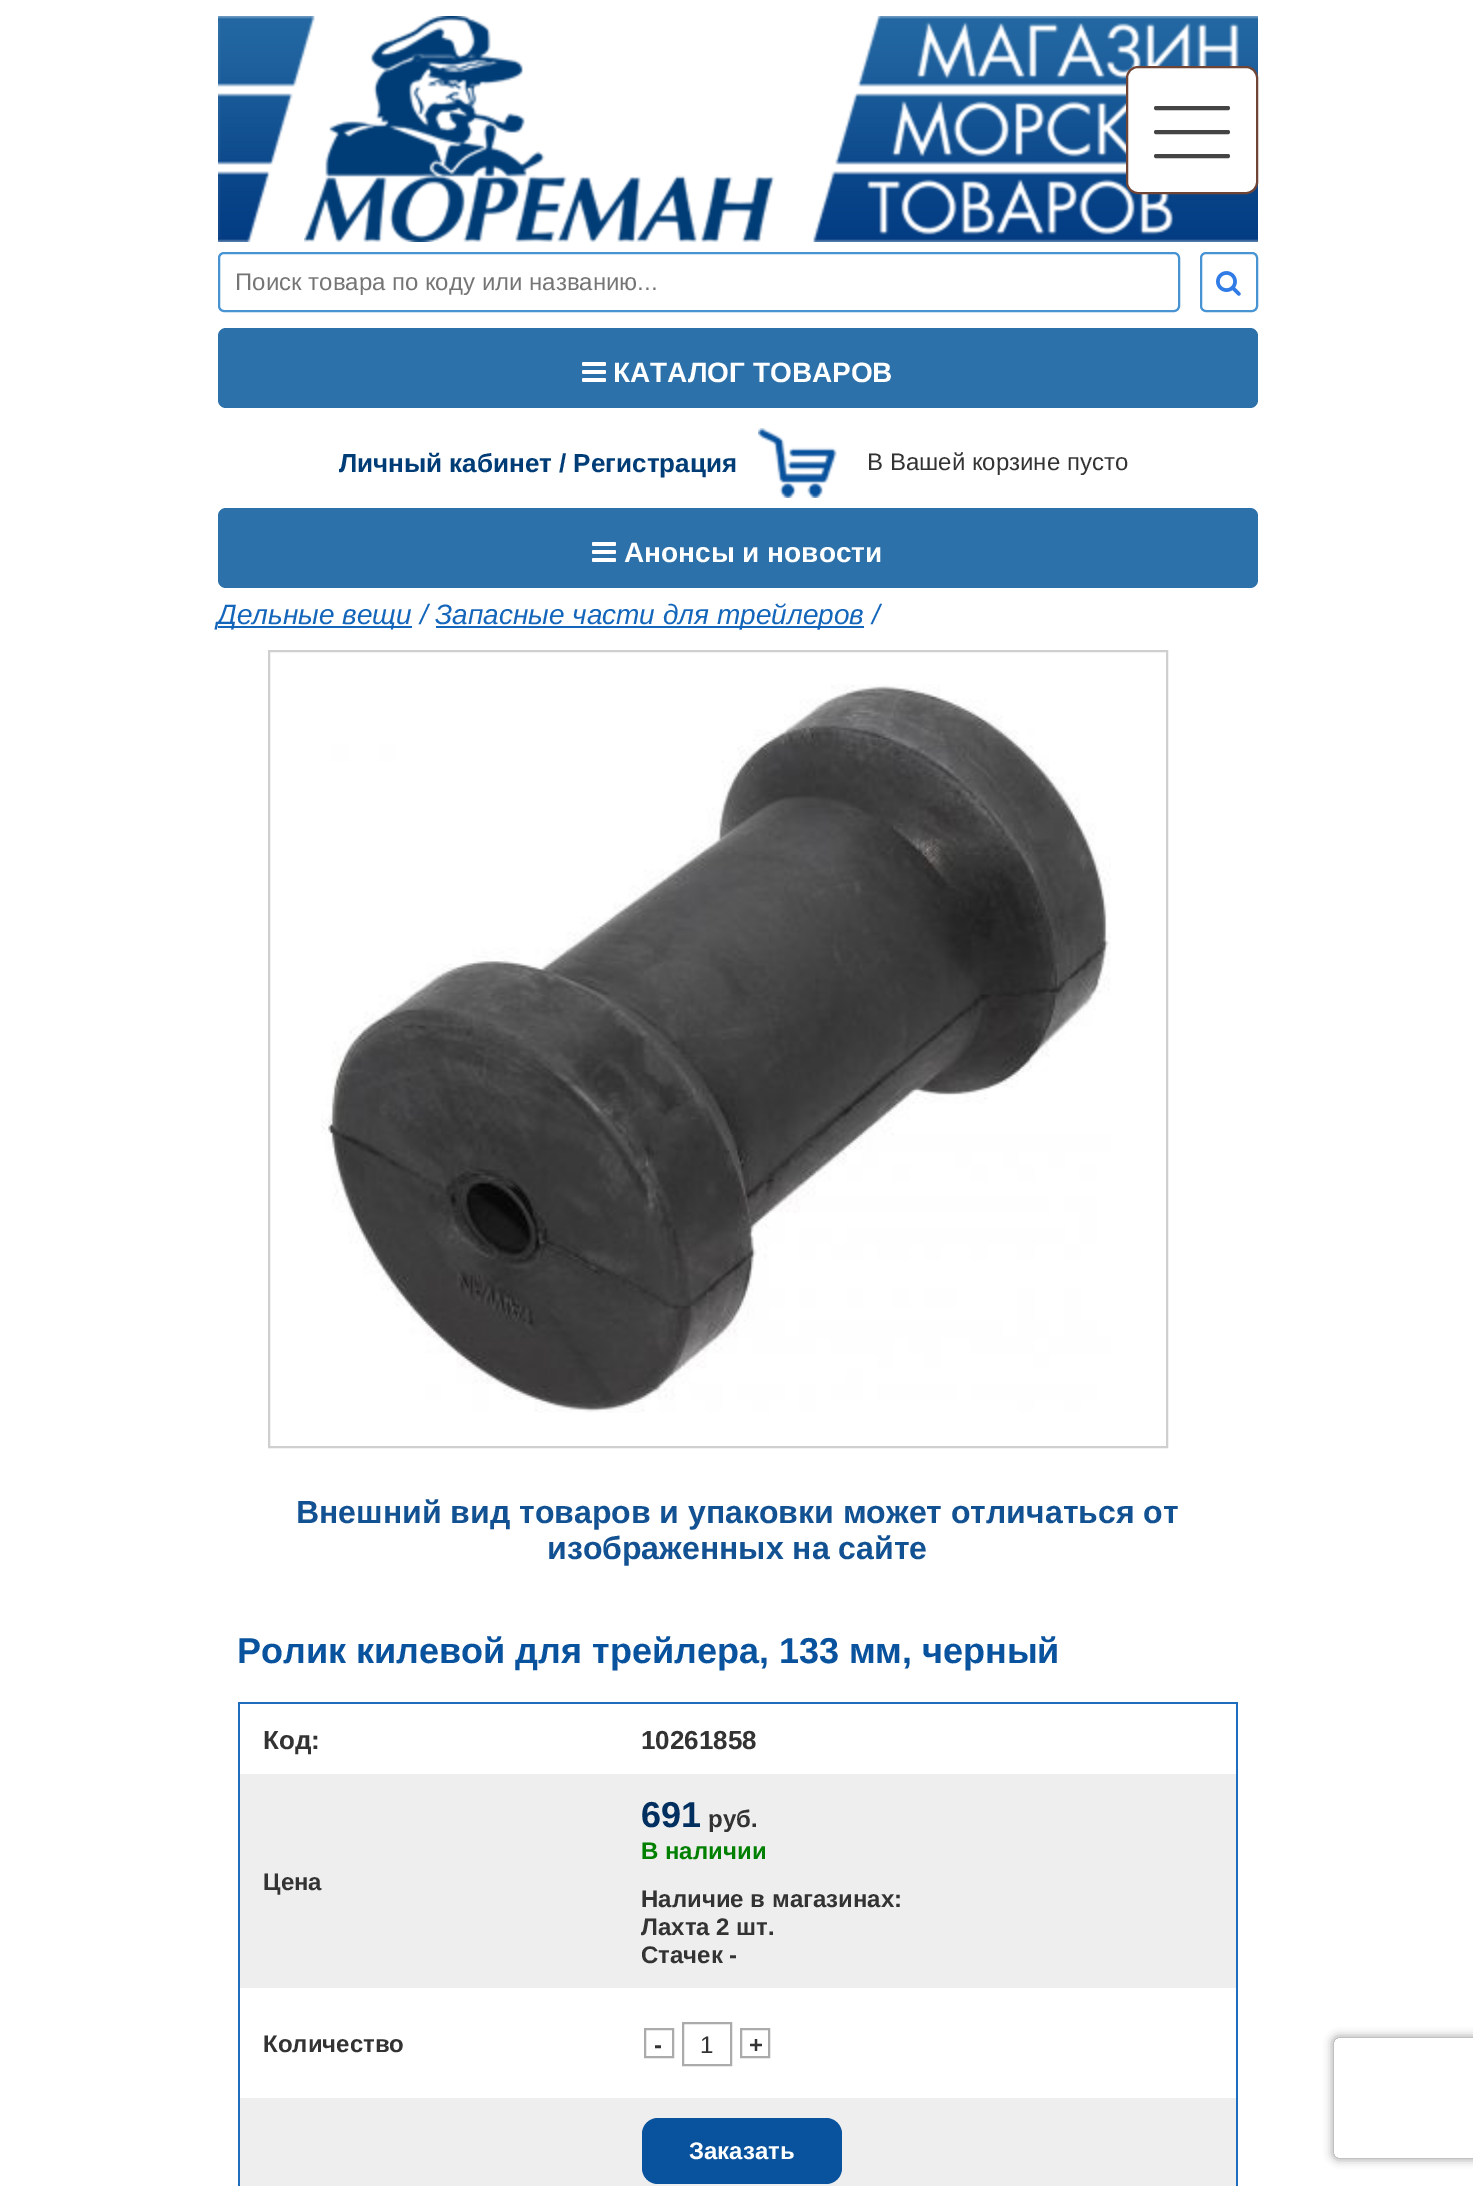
%!PS
<< /PageSize [1473 2186] /PageUsesTransparency true >> setpagedevice
/mt/moveto load def
/li/lineto load def
/ct/curveto load def
/cp/closepath load def
/fl/fill load def
/st/stroke load def
/gs/gsave load def
/gr/grestore load def
/lw/setlinewidth load def
/co { dup -16 bitshift 255 div exch dup -8 bitshift 255 and 255 div exch 255 and 255 div setrgbcolor } def
/fn { [ exch dup neg 0 0 3 -1 roll 0 0 ] selectfont } def
/tx { co fn moveto show } def
/bx { co rectfill } def
/al { dup .setfillconstantalpha .setstrokeconstantalpha } def
/rr { 5 dict begin { /r /h /w /y /x } { exch def } forall
  x r add y moveto x w add y 2 copy h add r arct x w add y h add x 1 index r arct
  x y h add x y r arct x y 2 copy exch w add exch r arct closepath end } def
/sh { 12 dict begin { /a /b /q /h /w /y /x } { exch def } forall gsave /was 0 def
  9 -2 -9 { dup b mul 4 div /e exch def 1 sub .425 mul 2.718 exch exp 1 add a .99 .min exch div /now exch def
    1 1 now sub 1 was sub div sub al /was now def
    w h .min e 2 mul add 0 gt { x e sub y e sub w e 2 mul add h e 2 mul add
      q e add b .6 mul add w h .min 2 div e add .min 0 .max rr fill } if } for grestore end } def
/im { 5 dict begin { /h /w /y /x /name } { exch def } forall
  gsave x y translate w h scale
  w h 8 [w 0 0 h 0 0] name (r) file false 3 colorimage grestore end } def
0 .pushpdf14devicefilter
0 2186 translate 1 -1 scale
4 setmiterlimit
0 0 1473 2186 16#FFFFFF bx
(media/1.raw) 218 16 1040 226 im
(media/2.raw) 304 16 471 226 im
1127 67 130 126 11 rr gs fl gr
16#704536 co
2 lw
st
16#444444 co
4 lw
1 setlinecap
1 setlinejoin
1156 132 mt 1228 132 li st
1156 108 mt 1228 108 li st
1156 156 mt 1228 156 li st
16#4893D2 co
2 lw
0 setlinecap
0 setlinejoin
219 253 960 58 5 rr st
1201 253 56 58 5 rr st
(media/3.raw) 1216 271 25 25 im
16#2D71AA co
218 328 1040 80 8 rr fl
(media/4.raw) 582 362 24 20 im
(media/5.raw) 758 428 79 70 im
218 508 1040 80 8 rr fl
(media/4.raw) 592 542 24 20 im
218 626 194 2 16#1466BA bx
436 626 428 2 16#1466BA bx
16#CFCFCF co
269 651 898 796 rectstroke
(media/6.raw) 321 684 790 729 im
238 1702 1000 2 16#1F6DBD bx
1236 1702 2 484 16#1F6DBD bx
238 1702 2 484 16#1F6DBD bx
240 1774 996 214 16#EEEEEE bx
16#ABABAB co
645 2029 28 28 rectstroke
683 2023 48 42 rectstroke
741 2029 28 28 rectstroke
240 2098 996 88 16#EEEEEE bx
16#09529D co
642 2118 200 66 16 rr fl
gs
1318 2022 mt 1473 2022 li 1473 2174 li 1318 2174 li cp 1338 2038 mt 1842 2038 li 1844 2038 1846 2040 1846 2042 ct 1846 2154 li 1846 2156 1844 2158 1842 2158 ct 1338 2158 li 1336 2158 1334 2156 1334 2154 ct 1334 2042 li 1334 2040 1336 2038 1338 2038 ct cp eoclip newpath
16#808080 co
1334 2038 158 120 4 5 1 sh
gr
(Поиск товара по коду или названию...) 235 290 /LiberationSans-Regular 24 16#757575 tx
(КАТАЛОГ ТОВАРОВ) 613 382 /LiberationSans-Bold 28 16#FFFFFF tx
(Личный кабинет / Регистрация) 339 472 /LiberationSans-Bold 26 16#003D77 tx
(В Вашей корзине пусто) 867 470 /LiberationSans-Regular 24 16#333333 tx
(Анонсы и новости) 624 562 /LiberationSans-Bold 28 16#FFFFFF tx
(Дельные вещи /) 217 624 /LiberationSans-Italic 28 16#1466BA tx
(Запасные части для трейлеров /) 435 624 /LiberationSans-Italic 28 16#1466BA tx
(Внешний вид товаров и упаковки может отличаться от) 296 1523 /LiberationSans-Bold 32 16#125192 tx
(изображенных на сайте) 547 1559 /LiberationSans-Bold 32 16#125192 tx
(Ролик килевой для трейлера, 133 мм, черный) 237 1663 /LiberationSans-Bold 36 16#09529D tx
(Код:) 263 1749 /LiberationSans-Bold 26 16#333333 tx
(10261858) 641 1749 /LiberationSans-Bold 26 16#333333 tx
(Цена) 263 1890 /LiberationSans-Bold 24 16#333333 tx
(691) 641 1827 /LiberationSans-Bold 36 16#012F5F tx
(руб.) 708 1827 /LiberationSans-Bold 24 16#333333 tx
(В наличии) 641 1859 /LiberationSans-Bold 24 16#008000 tx
(Наличие в магазинах:) 641 1907 /LiberationSans-Bold 24 16#333333 tx
(Лахта 2 шт.) 641 1935 /LiberationSans-Bold 24 16#333333 tx
(Стачек -) 641 1963 /LiberationSans-Bold 24 16#333333 tx
(Количество) 263 2052 /LiberationSans-Bold 24 16#333333 tx
(-) 654 2053 /LiberationSans-Bold 24 16#333333 tx
(1) 700 2053 /LiberationSans-Regular 24 16#333333 tx
(+) 749 2053 /LiberationSans-Bold 24 16#333333 tx
(Заказать) 689 2159 /LiberationSans-Bold 24 16#FFFFFF tx
.poppdf14devicefilter showpage
